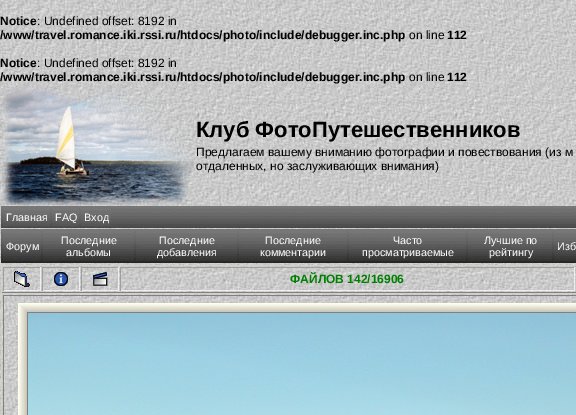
%!PS
<< /PageSize [576 415] >> setpagedevice
/co { dup -16 bitshift 255 div exch dup -8 bitshift 255 and 255 div exch 255 and 255 div setrgbcolor } def
/fn { [ exch dup neg 0 0 3 -1 roll 0 0 ] selectfont } def
/tx { co fn moveto show } def
/bx { co rectfill } def
/im { 5 dict begin { /h /w /y /x /name } { exch def } forall
  gsave x y translate w h scale
  w h 8 [w 0 0 h 0 0] name (r) file false 3 colorimage grestore end } def
0 415 translate 1 -1 scale
4 setmiterlimit
0 0 576 415 16#FFFFFF bx
(media/1.raw) 0 0 576 415 im
(media/2.raw) 1 85 193 120 im
(media/3.raw) 1 206 575 22 im
(media/4.raw) 3 208 47 18 im
(media/5.raw) 52 208 27 18 im
(media/6.raw) 81 208 30 18 im
(media/7.raw) 1 229 575 34 im
(media/8.raw) 3 231 38 30 im
(media/9.raw) 43 231 91 30 im
(media/10.raw) 136 231 101 30 im
(media/11.raw) 239 231 108 30 im
(media/12.raw) 349 231 117 30 im
(media/13.raw) 468 231 84 30 im
(media/14.raw) 554 231 22 30 im
1 265 575 1 16#D4D0C8 bx
1 292 575 1 16#808080 bx
1 265 1 28 16#D4D0C8 bx
3 267 38 1 16#9F9F9F bx
40 267 1 24 16#EEEEEE bx
3 290 38 1 16#EEEEEE bx
3 267 1 24 16#9F9F9F bx
(media/15.raw) 14 271 16 16 im
42 267 38 1 16#9F9F9F bx
79 267 1 24 16#EEEEEE bx
42 290 38 1 16#EEEEEE bx
42 267 1 24 16#9F9F9F bx
(media/16.raw) 54 272 14 14 im
81 267 38 1 16#9F9F9F bx
118 267 1 24 16#EEEEEE bx
81 290 38 1 16#EEEEEE bx
81 267 1 24 16#9F9F9F bx
(media/17.raw) 93 272 15 14 im
120 267 455 1 16#9F9F9F bx
574 267 1 24 16#EEEEEE bx
120 290 455 1 16#EEEEEE bx
120 267 1 24 16#9F9F9F bx
1 293 575 1 16#D4D0C8 bx
1 293 1 122 16#D4D0C8 bx
3 295 573 1 16#808080 bx
3 295 1 120 16#808080 bx
(media/18.raw) 18 303 558 112 im
(Notice) 0 25 /LiberationSans-Bold 12 16#000000 tx
(: Undefined offset: 8192 in) 37 25 /LiberationSans-Regular 12 16#000000 tx
(/www/travel.romance.iki.rssi.ru/htdocs/photo/include/debugger.inc.php) 0 39 /LiberationSans-Bold 12 16#000000 tx
(on line) 409 39 /LiberationSans-Regular 12 16#000000 tx
(112) 447 39 /LiberationSans-Bold 12 16#000000 tx
(Notice) 0 67 /LiberationSans-Bold 12 16#000000 tx
(: Undefined offset: 8192 in) 37 67 /LiberationSans-Regular 12 16#000000 tx
(/www/travel.romance.iki.rssi.ru/htdocs/photo/include/debugger.inc.php) 0 81 /LiberationSans-Bold 12 16#000000 tx
(on line) 409 81 /LiberationSans-Regular 12 16#000000 tx
(112) 447 81 /LiberationSans-Bold 12 16#000000 tx
(Клуб ФотоПутешественников) 196 137 /LiberationSans-Bold 22 16#000000 tx
(Предлагаем вашему вниманию фотографии и повествования \(из м) 196 156 /LiberationSans-Regular 12 16#000000 tx
(отдаленных, но заслуживающих внимания\)) 196 170 /LiberationSans-Regular 12 16#000000 tx
(Главная) 6 221 /LiberationSans-Regular 10.75 16#FFFFFF tx
(FAQ) 55 221 /LiberationSans-Regular 10.75 16#FFFFFF tx
(Вход) 84 221 /LiberationSans-Regular 10.75 16#FFFFFF tx
(Форум) 6 250 /LiberationSans-Regular 10.75 16#FFFFFF tx
(Последние) 61 244 /LiberationSans-Regular 10.75 16#FFFFFF tx
(альбомы) 66 256 /LiberationSans-Regular 10.75 16#FFFFFF tx
(Последние) 159 244 /LiberationSans-Regular 10.75 16#FFFFFF tx
(добавления) 157 256 /LiberationSans-Regular 10.75 16#FFFFFF tx
(Последние) 265 244 /LiberationSans-Regular 10.75 16#FFFFFF tx
(комментарии) 260 256 /LiberationSans-Regular 10.75 16#FFFFFF tx
(Часто) 393 244 /LiberationSans-Regular 10.75 16#FFFFFF tx
(просматриваемые) 362 256 /LiberationSans-Regular 10.75 16#FFFFFF tx
(Лучшие по) 484 244 /LiberationSans-Regular 10.75 16#FFFFFF tx
(рейтингу) 489 256 /LiberationSans-Regular 10.75 16#FFFFFF tx
(Изб) 557 250 /LiberationSans-Regular 10.75 16#FFFFFF tx
(ФАЙЛОВ 142/16906) 290 283 /LiberationSans-Bold 12 16#008000 tx
showpage
